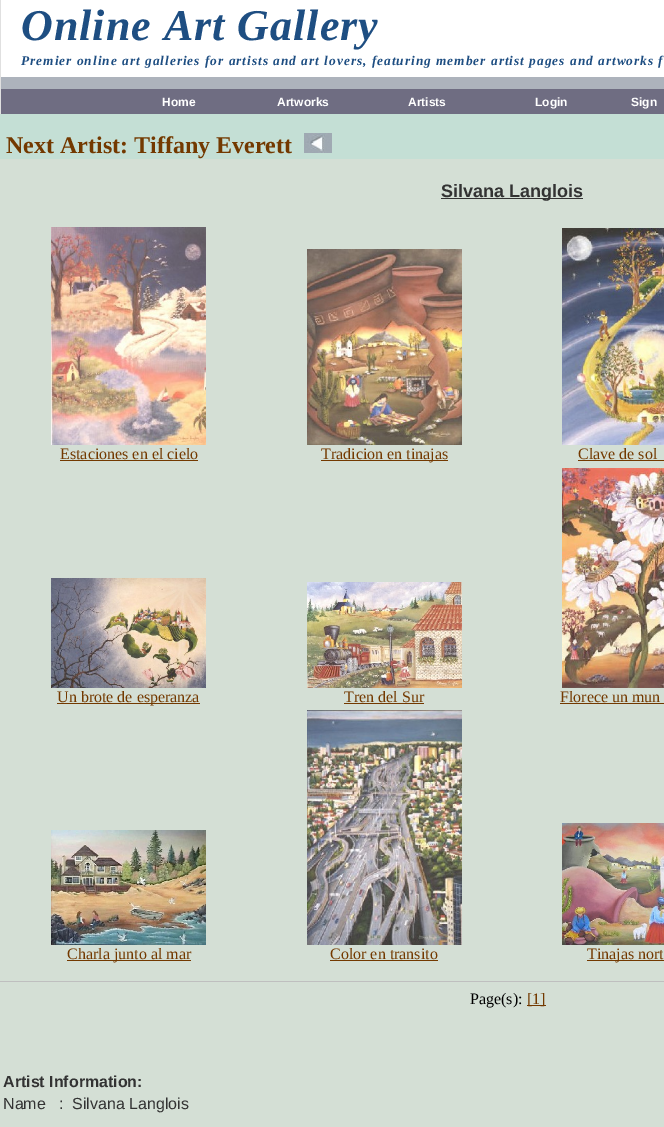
%!PS
<< /PageSize [664 1127] >> setpagedevice
/mt/moveto load def
/co { dup -16 bitshift 255 div exch dup -8 bitshift 255 and 255 div exch 255 and 255 div setrgbcolor } def
/fn { [ exch dup neg 0 0 3 -1 roll 0 0 ] selectfont } def
/tx { co fn moveto show } def
/bx { co rectfill } def
/im { 5 dict begin { /h /w /y /x /name } { exch def } forall
  gsave x y translate w h scale
  w h 8 [w 0 0 h 0 0] name (r) file false 3 colorimage grestore end } def
0 1127 translate 1 -1 scale
4 setmiterlimit
0 0 664 1127 16#FFFFFF bx
0 0 1 114 16#E0E0E0 bx
1 77 663 12 16#ADB3BC bx
1 89 663 25 16#6F6D82 bx
0 114 664 45 16#C4DFD5 bx
(media/1.raw) 304 133 28 20 im
0 159 664 968 16#D4DFD5 bx
441 198 142 1 16#333333 bx
(media/2.raw) 51 227 155 218 im
60 460 138 1 16#733900 bx
(media/3.raw) 307 249 155 196 im
321 460 127 1 16#733900 bx
(media/4.raw) 562 228 102 217 im
578 460 86 1 16#733900 bx
(media/5.raw) 51 578 155 110 im
57 703 143 1 16#733900 bx
(media/6.raw) 307 582 155 106 im
344 703 80 1 16#733900 bx
(media/7.raw) 562 468 102 220 im
560 703 104 1 16#733900 bx
(media/8.raw) 51 830 155 115 im
67 960 124 1 16#733900 bx
(media/9.raw) 307 710 155 235 im
330 960 108 1 16#733900 bx
(media/10.raw) 562 823 102 122 im
587 960 77 1 16#733900 bx
0 981 664 1 16#BFBFBF bx
527 1005 19 1 16#733900 bx
/LiberationSerif-BoldItalic 44 fn
16#1E4E82 co
21 40 mt 1 0 (Online Art Gallery) ashow
/LiberationSerif-BoldItalic 13.35 fn
21 65 mt 1 0 (Premier online art galleries for artists and art lovers, featuring member artist pages and artworks f) ashow
(Home) 162 106 /LiberationSans-Bold 12 16#FFFFFF tx
(Artworks) 277 106 /LiberationSans-Bold 12 16#FFFFFF tx
(Artists) 408 106 /LiberationSans-Bold 12 16#FFFFFF tx
(Login) 535 106 /LiberationSans-Bold 12 16#FFFFFF tx
(Sign) 631 106 /LiberationSans-Bold 12 16#FFFFFF tx
(Next Artist: Tiffany Everett) 6 153 /LiberationSerif-Bold 24 16#733900 tx
(Silvana Langlois) 441 197 /LiberationSans-Bold 18 16#333333 tx
(Estaciones en el cielo) 60 459 /LiberationSerif-Regular 16 16#733900 tx
(Tradicion en tinajas) 321 459 /LiberationSerif-Regular 16 16#733900 tx
(Clave de sol) 578 459 /LiberationSerif-Regular 16 16#733900 tx
(Un brote de esperanza) 57 702 /LiberationSerif-Regular 16 16#733900 tx
(Tren del Sur) 344 702 /LiberationSerif-Regular 16 16#733900 tx
(Florece un mun) 560 702 /LiberationSerif-Regular 16 16#733900 tx
(Charla junto al mar) 67 959 /LiberationSerif-Regular 16 16#733900 tx
(Color en transito) 330 959 /LiberationSerif-Regular 16 16#733900 tx
(Tinajas nort) 587 959 /LiberationSerif-Regular 16 16#733900 tx
(Page\(s\):) 470 1004 /LiberationSerif-Regular 16 16#000000 tx
([1]) 527 1004 /LiberationSerif-Regular 16 16#733900 tx
(Artist Information:) 3 1087 /LiberationSans-Bold 16 16#333333 tx
(Name   :) 3 1109 /LiberationSans-Regular 16 16#333333 tx
(Silvana Langlois) 72 1109 /LiberationSans-Regular 16 16#333333 tx
showpage
